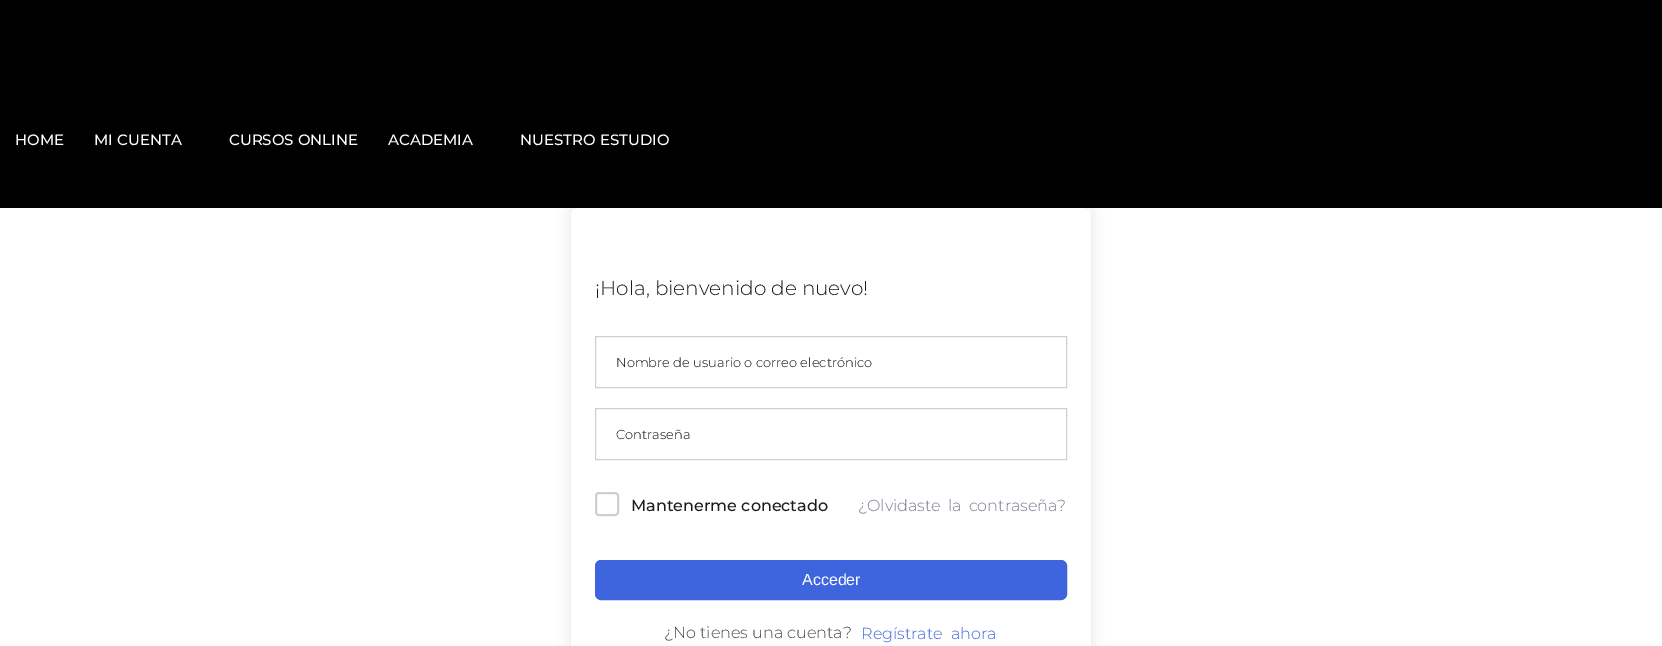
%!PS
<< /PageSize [1662 646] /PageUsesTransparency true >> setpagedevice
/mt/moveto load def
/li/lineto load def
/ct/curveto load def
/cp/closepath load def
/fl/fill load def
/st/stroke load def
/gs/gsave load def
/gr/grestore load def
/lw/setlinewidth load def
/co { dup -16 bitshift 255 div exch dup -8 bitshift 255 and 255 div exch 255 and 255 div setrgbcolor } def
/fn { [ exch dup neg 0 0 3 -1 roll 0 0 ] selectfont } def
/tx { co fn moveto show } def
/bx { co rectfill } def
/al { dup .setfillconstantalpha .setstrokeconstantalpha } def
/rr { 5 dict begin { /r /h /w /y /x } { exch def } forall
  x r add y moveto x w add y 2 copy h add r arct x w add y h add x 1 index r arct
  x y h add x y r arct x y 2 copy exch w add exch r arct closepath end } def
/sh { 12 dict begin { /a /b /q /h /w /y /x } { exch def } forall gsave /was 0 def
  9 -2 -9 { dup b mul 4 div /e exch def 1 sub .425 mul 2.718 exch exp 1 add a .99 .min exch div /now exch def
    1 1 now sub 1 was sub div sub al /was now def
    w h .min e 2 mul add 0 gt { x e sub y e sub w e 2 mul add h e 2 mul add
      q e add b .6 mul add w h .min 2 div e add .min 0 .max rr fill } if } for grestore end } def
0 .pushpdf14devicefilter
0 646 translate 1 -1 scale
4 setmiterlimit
0 0 1662 646 16#FFFFFF bx
0 0 1662 208 16#000000 bx
gs
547 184 mt 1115 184 li 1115 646 li 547 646 li cp 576 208 mt 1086 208 li 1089 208 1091 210 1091 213 ct 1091 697 li 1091 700 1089 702 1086 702 ct 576 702 li 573 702 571 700 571 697 ct 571 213 li 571 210 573 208 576 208 ct cp eoclip newpath
571 208 520 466 5 7.5 .1 sh
gr
16#CDCFD5 co
595.5 336.5 471 51 rectstroke
595.5 408.5 471 51 rectstroke
2 lw
596 493 22 22 3 rr st
16#3E64DE co
595.5 560.5 471 39 5.5 rr gs fl gr
1 lw
st
(HOME) 15 145 /Montserrat-Medium 15 16#FFFFFF tx
(MI CUENTA) 94 145 /Montserrat-Medium 15 16#FFFFFF tx
(CURSOS ONLINE) 229 145 /Montserrat-Medium 15 16#FFFFFF tx
(ACADEMIA) 388 145 /Montserrat-Medium 15 16#FFFFFF tx
(NUESTRO ESTUDIO) 520 145 /Montserrat-Medium 15 16#FFFFFF tx
(¡Hola, bienvenido de nuevo!) 595 295 /Montserrat-Light 20 16#1A1B1E tx
(Nombre de usuario o correo electrónico) 616 367 /Montserrat-Light 13 16#000000 tx
(Contraseña) 616 439 /Montserrat-Light 13 16#000000 tx
(Mantenerme conectado) 631 511 /Montserrat-Medium 16 16#1A1B1E tx
/Montserrat-Light 16 fn
16#757C8E co
858 511 mt 3 0 32 (¿Olvidaste la contraseña?) widthshow
(Acceder) 802 585 /LiberationSans-Regular 16 16#FFFFFF tx
(¿No tienes una cuenta?) 664 638 /Montserrat-Light 16 16#41454F tx
16#3E64DE co
861 639 mt 4 0 32 (Regístrate ahora) widthshow
.poppdf14devicefilter showpage
